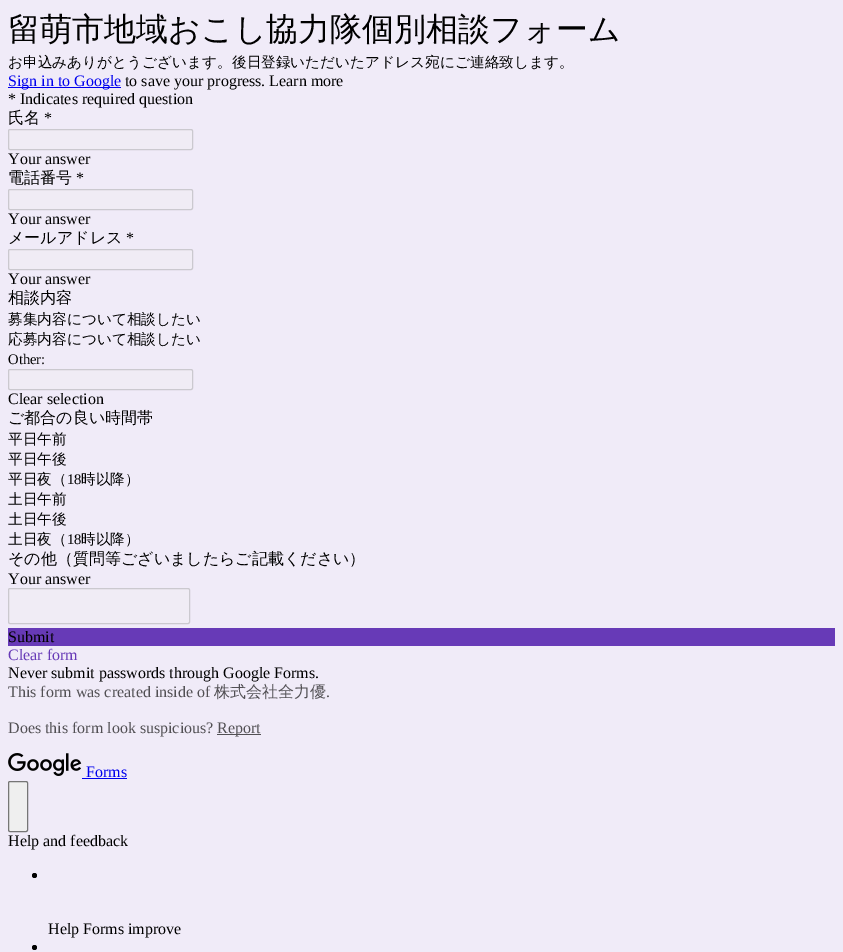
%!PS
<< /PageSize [843 952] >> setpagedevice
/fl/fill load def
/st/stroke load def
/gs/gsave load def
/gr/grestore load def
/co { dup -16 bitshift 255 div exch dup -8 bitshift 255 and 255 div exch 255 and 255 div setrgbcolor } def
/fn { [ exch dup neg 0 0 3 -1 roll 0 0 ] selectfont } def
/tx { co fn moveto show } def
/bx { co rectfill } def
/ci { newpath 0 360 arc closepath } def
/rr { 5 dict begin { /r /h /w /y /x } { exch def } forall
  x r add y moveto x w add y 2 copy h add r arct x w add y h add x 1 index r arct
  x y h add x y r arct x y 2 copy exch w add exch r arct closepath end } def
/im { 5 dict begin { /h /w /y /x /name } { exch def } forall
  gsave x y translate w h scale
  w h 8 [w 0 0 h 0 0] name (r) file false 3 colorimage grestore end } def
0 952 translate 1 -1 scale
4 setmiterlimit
0 0 843 952 16#F0EBF8 bx
8 87 113 1 16#0000EE bx
16#F0ECF5 co
8.5 129.5 184 20 1.5 rr gs fl gr
16#CBC9CF co
st
16#F0ECF5 co
8.5 189.5 184 20 1.5 rr gs fl gr
16#CBC9CF co
st
16#F0ECF5 co
8.5 249.5 184 20 1.5 rr gs fl gr
16#CBC9CF co
st
16#F0ECF5 co
8.5 369.5 184 20 1.5 rr gs fl gr
16#CBC9CF co
st
16#F0ECF5 co
8.5 588.5 181 35 1.5 rr gs fl gr
16#CBC9CF co
st
8 628 827 18 16#673AB7 bx
217 734 44 1 16#525054 bx
(media/1.raw) 8 753 74 23 im
82 778 45 1 16#0000EE bx
16#EFEFEF co
8.5 781.5 19 50 1.5 rr gs fl gr
16#767676 co
st
16#000000 co
34.5 875.5 2.5 ci fl
34.5 947.5 2.5 ci fl
(留萌市地域おこし協力隊個別相談フォーム) 8 40 /WenQuanYiZenHei-Medium 32 16#000000 tx
(お申込みありがとうございます。後日登録いただいたアドレス宛にご連絡致します。) 8 67 /WenQuanYiZenHei-Medium 14.65 16#000000 tx
(Sign in to Google) 8 86 /LiberationSerif-Regular 16 16#0000EE tx
(to save your progress. Learn more) 125 86 /LiberationSerif-Regular 16 16#000000 tx
(* Indicates required question) 8 104 /LiberationSerif-Regular 16 16#000000 tx
(氏名) 8 123 /WenQuanYiZenHei-Medium 16 16#000000 tx
(*) 44 123 /LiberationSerif-Regular 16 16#000000 tx
(Your answer) 8 164 /LiberationSerif-Regular 16 16#000000 tx
(電話番号) 8 183 /WenQuanYiZenHei-Medium 16 16#000000 tx
(*) 76 183 /LiberationSerif-Regular 16 16#000000 tx
(Your answer) 8 224 /LiberationSerif-Regular 16 16#000000 tx
(メールアドレス) 8 243 /WenQuanYiZenHei-Medium 16 16#000000 tx
(*) 126 243 /LiberationSerif-Regular 16 16#000000 tx
(Your answer) 8 284 /LiberationSerif-Regular 16 16#000000 tx
(相談内容) 8 303 /WenQuanYiZenHei-Medium 16 16#000000 tx
(募集内容について相談したい) 8 324 /WenQuanYiZenHei-Medium 14.65 16#000000 tx
(応募内容について相談したい) 8 344 /WenQuanYiZenHei-Medium 14.65 16#000000 tx
(Other:) 8 364 /LiberationSerif-Regular 14.65 16#000000 tx
(Clear selection) 8 404 /LiberationSerif-Regular 16 16#000000 tx
(ご都合の良い時間帯) 8 423 /WenQuanYiZenHei-Medium 16 16#000000 tx
(平日午前) 8 444 /WenQuanYiZenHei-Medium 14.65 16#000000 tx
(平日午後) 8 464 /WenQuanYiZenHei-Medium 14.65 16#000000 tx
(平日夜（) 8 484 /WenQuanYiZenHei-Medium 14.65 16#000000 tx
(18) 67 484 /LiberationSerif-Regular 14.65 16#000000 tx
(時以降）) 81 484 /WenQuanYiZenHei-Medium 14.65 16#000000 tx
(土日午前) 8 504 /WenQuanYiZenHei-Medium 14.65 16#000000 tx
(土日午後) 8 524 /WenQuanYiZenHei-Medium 14.65 16#000000 tx
(土日夜（) 8 544 /WenQuanYiZenHei-Medium 14.65 16#000000 tx
(18) 67 544 /LiberationSerif-Regular 14.65 16#000000 tx
(時以降）) 81 544 /WenQuanYiZenHei-Medium 14.65 16#000000 tx
(その他（質問等ございましたらご記載ください）) 8 564 /WenQuanYiZenHei-Medium 16 16#000000 tx
(Your answer) 8 584 /LiberationSerif-Regular 16 16#000000 tx
(Submit) 8 642 /LiberationSerif-Regular 16 16#000000 tx
(Clear form) 8 660 /LiberationSerif-Regular 16 16#673AB7 tx
(Never submit passwords through Google Forms.) 8 678 /LiberationSerif-Regular 16 16#000000 tx
(This form was created inside of) 8 697 /LiberationSerif-Regular 16 16#525054 tx
(株式会社全力優) 214 697 /WenQuanYiZenHei-Medium 16 16#525054 tx
(.) 326 697 /LiberationSerif-Regular 16 16#525054 tx
(Does this form look suspicious?) 8 733 /LiberationSerif-Regular 16 16#525054 tx
(Report) 217 733 /LiberationSerif-Regular 16 16#525054 tx
(Forms) 86 777 /LiberationSerif-Regular 16 16#0000EE tx
(Help and feedback) 8 846 /LiberationSerif-Regular 16 16#000000 tx
(Help Forms improve) 48 934 /LiberationSerif-Regular 16 16#000000 tx
showpage
